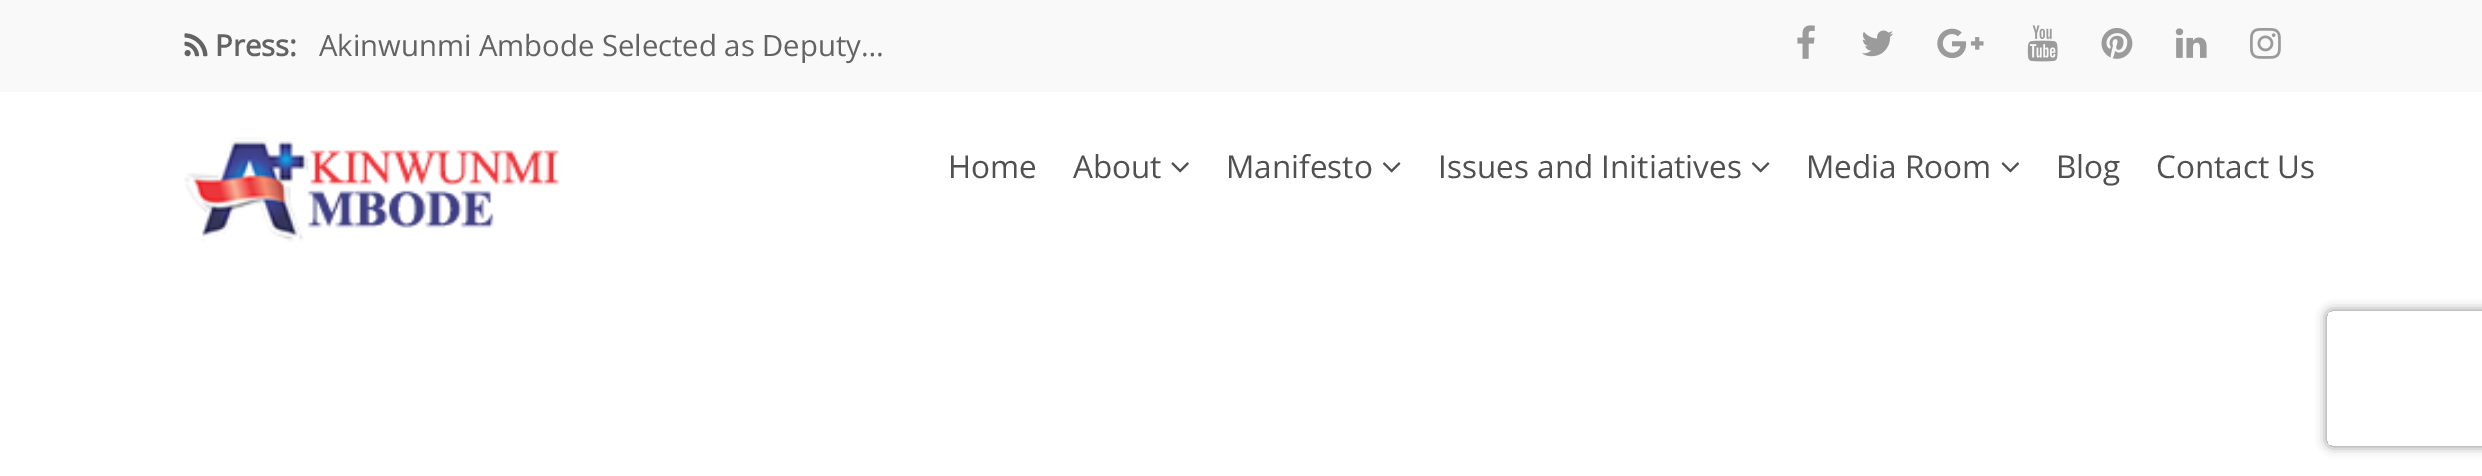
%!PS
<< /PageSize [2482 476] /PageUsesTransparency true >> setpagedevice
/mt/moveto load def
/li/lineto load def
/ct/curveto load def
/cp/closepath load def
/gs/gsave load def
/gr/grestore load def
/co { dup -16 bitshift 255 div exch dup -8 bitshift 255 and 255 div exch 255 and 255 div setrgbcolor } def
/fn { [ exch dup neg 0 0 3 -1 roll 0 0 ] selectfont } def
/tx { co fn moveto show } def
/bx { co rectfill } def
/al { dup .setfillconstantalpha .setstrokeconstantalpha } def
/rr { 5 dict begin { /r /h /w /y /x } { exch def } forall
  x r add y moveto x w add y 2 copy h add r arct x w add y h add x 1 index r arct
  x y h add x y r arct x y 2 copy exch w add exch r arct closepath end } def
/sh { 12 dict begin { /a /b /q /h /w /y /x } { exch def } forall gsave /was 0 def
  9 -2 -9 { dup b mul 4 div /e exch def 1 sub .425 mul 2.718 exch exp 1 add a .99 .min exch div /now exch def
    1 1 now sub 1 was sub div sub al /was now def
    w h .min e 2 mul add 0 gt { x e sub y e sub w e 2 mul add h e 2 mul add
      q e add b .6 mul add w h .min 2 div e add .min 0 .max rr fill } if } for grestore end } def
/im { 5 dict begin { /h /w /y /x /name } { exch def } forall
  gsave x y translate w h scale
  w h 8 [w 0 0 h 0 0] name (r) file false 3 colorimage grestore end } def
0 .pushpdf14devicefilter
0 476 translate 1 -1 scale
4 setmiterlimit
0 0 2482 476 16#FFFFFF bx
0 0 2482 90 16#F9F9F9 bx
0 90 2482 2 16#F7F7F7 bx
(media/1.raw) 184 33 24 24 im
(media/2.raw) 1797 25 18 34 im
(media/3.raw) 1862 30 31 27 im
(media/4.raw) 1937 28 47 31 im
(media/5.raw) 2027 25 31 37 im
(media/6.raw) 2101 28 32 31 im
(media/7.raw) 2175 28 32 30 im
(media/8.raw) 2250 28 31 31 im
(media/9.raw) 184 137 375 106 im
(media/10.raw) 1171 162 18 11 im
(media/11.raw) 1382 162 19 11 im
(media/11.raw) 1751 162 19 11 im
(media/12.raw) 2001 162 19 11 im
gs
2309 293 mt 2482 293 li 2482 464 li 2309 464 li cp 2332 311 mt 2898 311 li 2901 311 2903 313 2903 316 ct 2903 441 li 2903 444 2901 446 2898 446 ct 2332 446 li 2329 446 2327 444 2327 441 ct 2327 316 li 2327 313 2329 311 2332 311 ct cp eoclip newpath
16#838383 co
2327 311 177 135 5 5.5 1 sh
gr
(Press:) 215 56 /OpenSans-Bold 29.25 16#636363 tx
(Akinwunmi Ambode Selected as Deputy…) 319 56 /OpenSans-Regular 29.25 16#636363 tx
(Home) 948 178 /OpenSans-Regular 31.5 16#505050 tx
(About) 1073 178 /OpenSans-Regular 31.5 16#505050 tx
(Manifesto) 1226 178 /OpenSans-Regular 31.5 16#505050 tx
(Issues and Initiatives) 1438 178 /OpenSans-Regular 31.5 16#505050 tx
(Media Room) 1806 178 /OpenSans-Regular 31.5 16#505050 tx
(Blog) 2056 178 /OpenSans-Regular 31.5 16#505050 tx
(Contact Us) 2156 178 /OpenSans-Regular 31.5 16#505050 tx
.poppdf14devicefilter showpage
